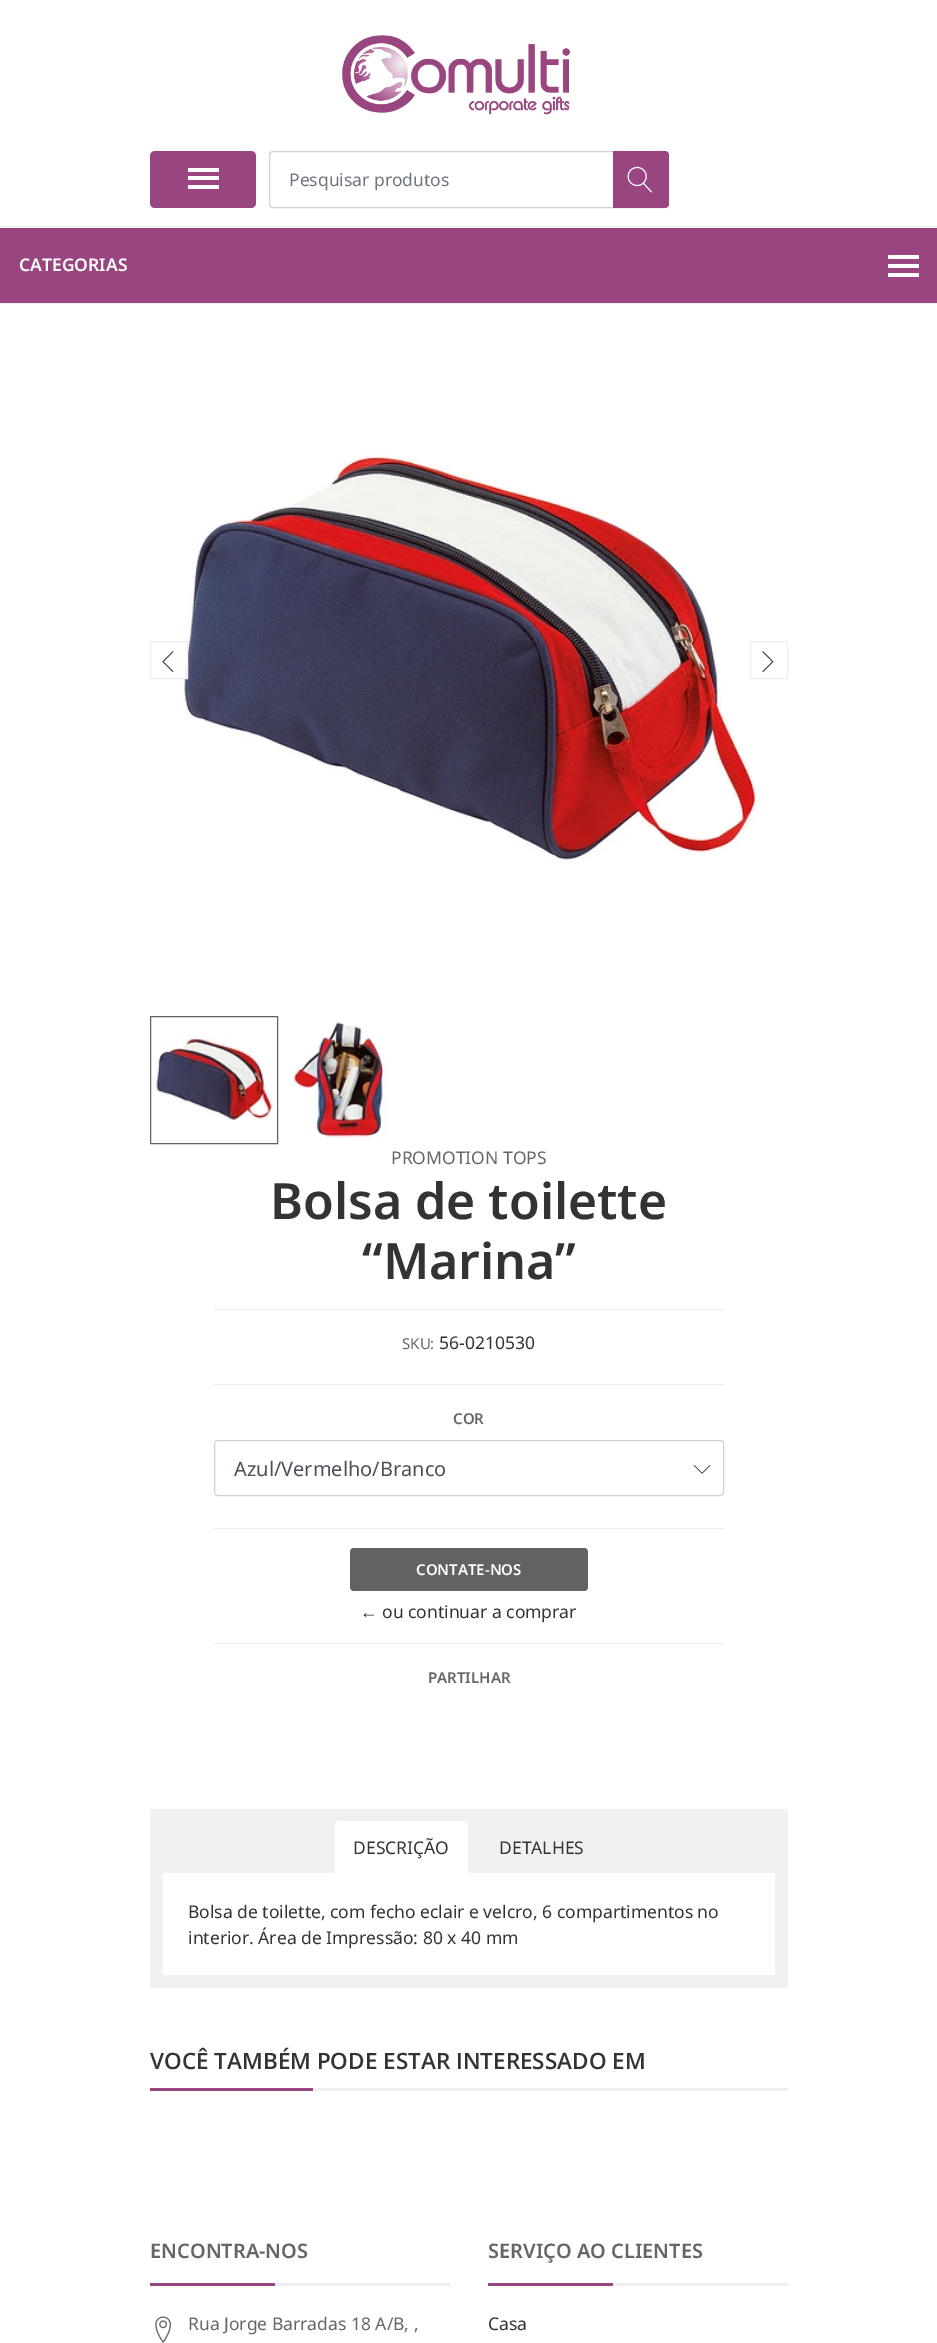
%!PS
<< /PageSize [937 2343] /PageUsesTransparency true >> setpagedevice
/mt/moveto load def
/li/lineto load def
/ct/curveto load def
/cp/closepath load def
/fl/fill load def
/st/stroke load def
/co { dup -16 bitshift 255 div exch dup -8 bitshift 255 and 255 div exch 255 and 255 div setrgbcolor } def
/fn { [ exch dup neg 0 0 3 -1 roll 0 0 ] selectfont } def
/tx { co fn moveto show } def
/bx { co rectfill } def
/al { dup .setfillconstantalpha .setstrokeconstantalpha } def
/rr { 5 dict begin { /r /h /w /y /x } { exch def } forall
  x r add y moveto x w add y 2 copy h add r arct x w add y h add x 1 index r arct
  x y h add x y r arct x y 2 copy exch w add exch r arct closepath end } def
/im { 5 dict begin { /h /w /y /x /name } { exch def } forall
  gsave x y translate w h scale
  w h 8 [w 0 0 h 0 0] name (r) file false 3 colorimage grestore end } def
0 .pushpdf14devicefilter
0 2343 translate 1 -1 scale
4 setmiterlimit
0 0 937 2343 16#FFFFFF bx
(media/1.raw) 342 35 228 80 im
16#994580 co
150 151 106 57 5 rr fl
188 168 31 4 16#FFFFFF bx
188 176 31 4 16#FFFFFF bx
188 185 31 4 16#FFFFFF bx
16#D1D1D1 co
269.5 151.5 399 56 3.5 rr st
16#994580 co
613 151 mt 665 151 li 667 151 669 153 669 155 ct 669 204 li 669 206 667 208 665 208 ct 613 208 li cp fl
(media/2.raw) 627 166 25 27 im
0 226 937 1 16#EEEEEE bx
0 303 937 1 16#EEEEEE bx
0 228 937 75 16#994580 bx
888 255 31 4 16#FFFFFF bx
888 264 31 4 16#FFFFFF bx
888 273 31 4 16#FFFFFF bx
(media/3.raw) 183 455 573 406 im
0.9 al
183 653 4 25 16#FFFFFF bx
1 al
16#EEEEEE co
150.5 641.5 37 37 rectstroke
(media/4.raw) 162 651 12 21 im
750.5 641.5 37 37 rectstroke
(media/5.raw) 762 651 12 21 im
(media/6.raw) 156 1037 118 83 im
16#626262 co
150.5 1016.5 127 127 rectstroke
(media/7.raw) 290 1022 99 117 im
214 1309 510 1 16#EEEEEE bx
214 1384 510 1 16#EEEEEE bx
214 1528 510 1 16#EEEEEE bx
(media/8.raw) 693 1465 18 9 im
16#D1D1D1 co
214.5 1440.5 509 55 3.5 rr st
214 1643 510 1 16#EEEEEE bx
16#626262 co
350 1548 238 43 4 rr fl
150 1809 638 179 16#F1F1F1 bx
16#FFFFFF co
339 1821 mt 464 1821 li 466 1821 468 1823 468 1825 ct 468 1873 li 335 1873 li 335 1825 li 335 1823 337 1821 339 1821 ct cp fl
163 1873 612 102 16#FFFFFF bx
313 2088 475 3 16#EEEEEE bx
150 2088 163 3 16#994580 bx
275 2283 175 3 16#EEEEEE bx
150 2283 125 3 16#994580 bx
(media/9.raw) 155 2316 16 27 im
613 2283 175 3 16#EEEEEE bx
488 2283 125 3 16#994580 bx
(Pesquisar produtos) 289 186 /NotoSans-Regular 17.5 16#6C757D tx
(CATEGORIAS) 19 271 /NotoSans-SemiBold 17.5 16#FFFFFF tx
(PROMOTION TOPS) 391 1164 /NotoSans-Regular 17.5 16#666666 tx
(Bolsa de toilette) 270 1219 /NotoSans-SemiBold 50 16#333333 tx
(“Marina”) 362 1279 /NotoSans-SemiBold 50 16#333333 tx
(SKU:) 402 1349 /NotoSans-Regular 15 16#666666 tx
(56-0210530) 439 1349 /NotoSans-Regular 17.5 16#333333 tx
(COR) 453 1424 /NotoSans-SemiBold 15 16#666666 tx
(Azul/Vermelho/Branco) 234 1476 /NotoSans-Regular 20 16#495057 tx
(CONTATE-NOS) 416 1575 /NotoSans-SemiBold 15 16#FFFFFF tx
(←) 360 1618 /LiberationSerif-Regular 17.5 16#333333 tx
(ou continuar a comprar) 382 1618 /NotoSans-Regular 17.5 16#333333 tx
(PARTILHAR) 428 1683 /NotoSans-SemiBold 15 16#666666 tx
(DESCRIÇÃO) 353 1854 /NotoSans-Regular 17.5 16#333333 tx
(DETALHES) 499 1854 /NotoSans-Regular 17.5 16#333333 tx
(Bolsa de toilette, com fecho eclair e velcro, 6 compartimentos no) 188 1918 /NotoSans-Regular 17.5 16#333333 tx
(interior. Área de Impressão: 80 x 40 mm) 188 1944 /NotoSans-Regular 17.5 16#333333 tx
(VOCÊ TAMBÉM PODE ESTAR INTERESSADO EM) 150 2069 /OpenSans-SemiBold 22.5 16#333333 tx
(ENCONTRA-NOS) 150 2258 /NotoSans-SemiBold 20 16#666666 tx
(Rua Jorge Barradas 18 A/B, ,) 188 2330 /NotoSans-Regular 17.5 16#666666 tx
(SERVIÇO AO CLIENTES) 488 2258 /NotoSans-SemiBold 20 16#666666 tx
(Casa) 488 2330 /NotoSans-Regular 17.5 16#333333 tx
.poppdf14devicefilter showpage
